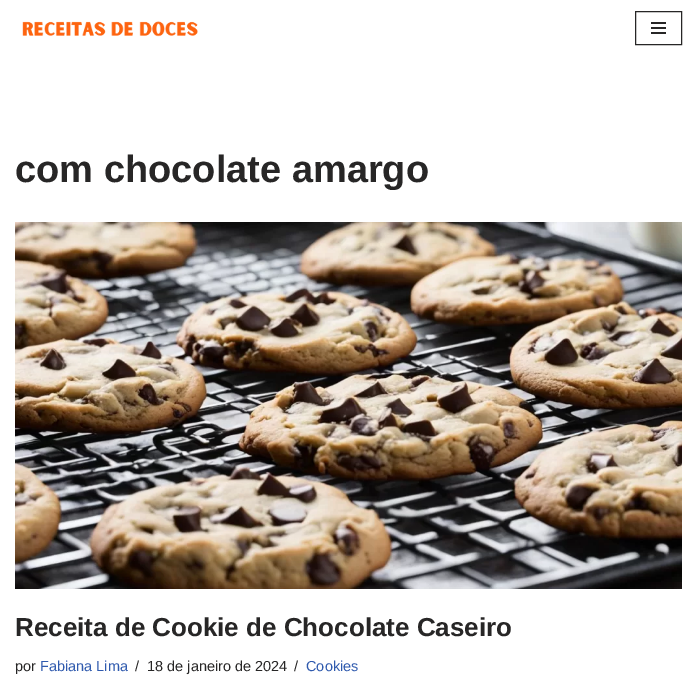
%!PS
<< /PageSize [697 694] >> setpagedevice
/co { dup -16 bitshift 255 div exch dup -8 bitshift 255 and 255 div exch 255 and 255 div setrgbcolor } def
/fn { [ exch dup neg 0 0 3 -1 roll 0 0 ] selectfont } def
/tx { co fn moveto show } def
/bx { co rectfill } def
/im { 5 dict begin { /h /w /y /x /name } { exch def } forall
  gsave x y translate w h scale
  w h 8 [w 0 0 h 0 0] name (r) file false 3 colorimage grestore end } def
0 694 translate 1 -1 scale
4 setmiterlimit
0 0 697 694 16#FFFFFF bx
(media/1.raw) 22 21 176 16 im
16#272626 co
635.5 11.5 46 33 rectstroke
651 22 15 2 16#272626 bx
651 27 15 2 16#272626 bx
651 32 15 2 16#272626 bx
(media/2.raw) 15 222 667 367 im
(com chocolate amargo) 15 182 /LiberationSans-Bold 38 16#272626 tx
(Receita de Cookie de Chocolate Caseiro) 15 636 /LiberationSans-Bold 26 16#272626 tx
(por) 15 671 /LiberationSans-Regular 14.5 16#272626 tx
(Fabiana Lima) 40 671 /LiberationSans-Regular 14.5 16#2F5AAE tx
(/) 135 671 /LiberationSans-Regular 14.5 16#272626 tx
(18 de janeiro de 2024) 147 671 /LiberationSans-Regular 14.5 16#272626 tx
(/) 294 671 /LiberationSans-Regular 14.5 16#272626 tx
(Cookies) 306 671 /LiberationSans-Regular 14.5 16#2F5AAE tx
showpage
